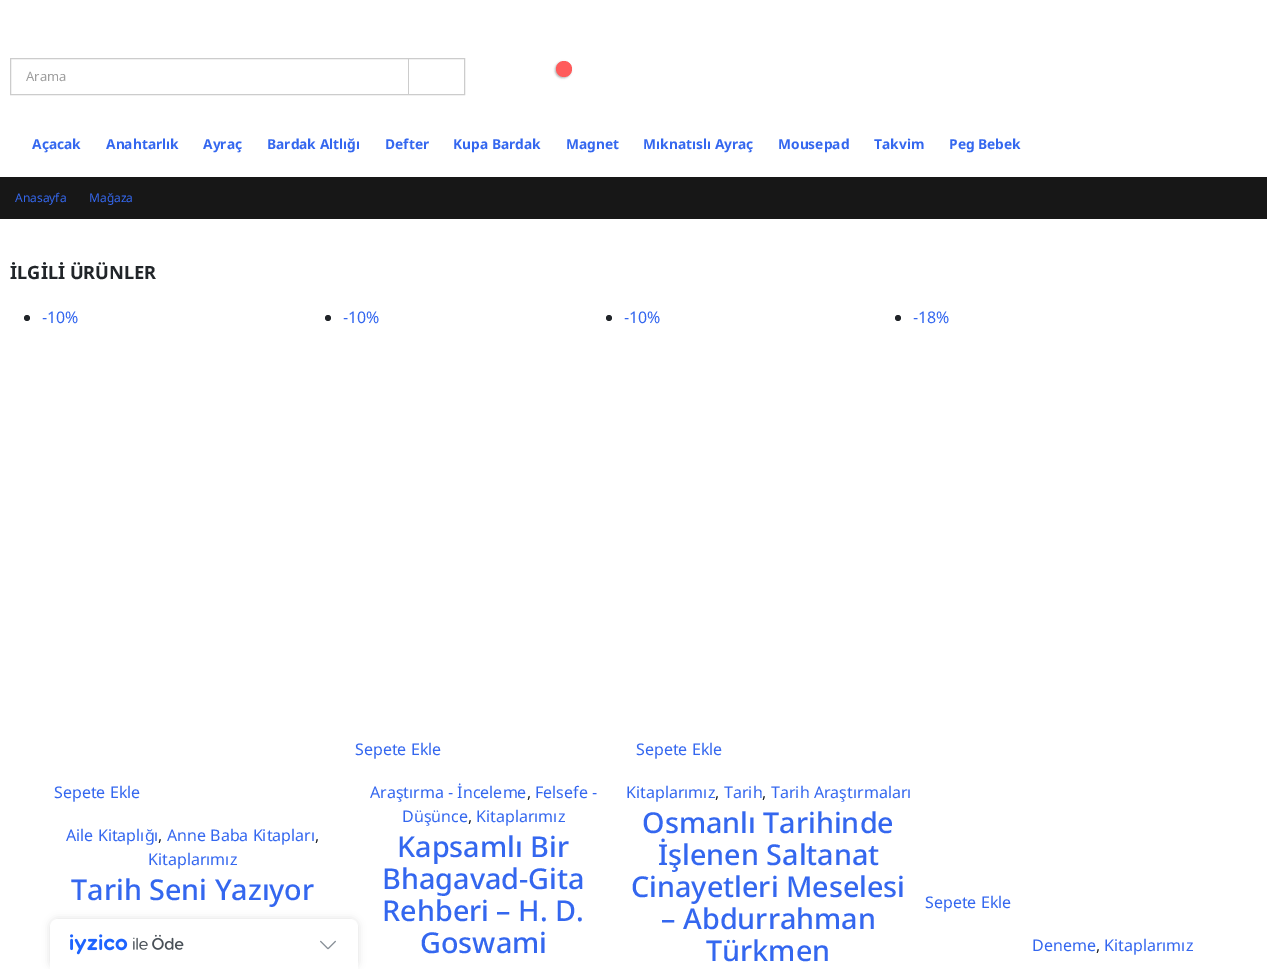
%!PS
<< /PageSize [1267 969] /PageUsesTransparency true >> setpagedevice
/mt/moveto load def
/li/lineto load def
/ct/curveto load def
/cp/closepath load def
/fl/fill load def
/co { dup -16 bitshift 255 div exch dup -8 bitshift 255 and 255 div exch 255 and 255 div setrgbcolor } def
/fn { [ exch dup neg 0 0 3 -1 roll 0 0 ] selectfont } def
/tx { co fn moveto show } def
/bx { co rectfill } def
/al { dup .setfillconstantalpha .setstrokeconstantalpha } def
/ci { newpath 0 360 arc closepath } def
/rr { 5 dict begin { /r /h /w /y /x } { exch def } forall
  x r add y moveto x w add y 2 copy h add r arct x w add y h add x 1 index r arct
  x y h add x y r arct x y 2 copy exch w add exch r arct closepath end } def
/sh { 12 dict begin { /a /b /q /h /w /y /x } { exch def } forall gsave /was 0 def
  9 -2 -9 { dup b mul 4 div /e exch def 1 sub .425 mul 2.718 exch exp 1 add a .99 .min exch div /now exch def
    1 1 now sub 1 was sub div sub al /was now def
    w h .min e 2 mul add 0 gt { x e sub y e sub w e 2 mul add h e 2 mul add
      q e add b .6 mul add w h .min 2 div e add .min 0 .max rr fill } if } for grestore end } def
/im { 5 dict begin { /h /w /y /x /name } { exch def } forall
  gsave x y translate w h scale
  w h 8 [w 0 0 h 0 0] name (r) file false 3 colorimage grestore end } def
0 .pushpdf14devicefilter
0 969 translate 1 -1 scale
4 setmiterlimit
0 0 1267 969 16#FFFFFF bx
16#CCCCCC co
10.5 58.5 454 36 rectstroke
408 59 1 35 16#CCCCCC bx
16#000000 co
555 62 16 16 8 1 .3 sh
16#FF5B5B co
564 69 8 ci fl
0 177 1267 42 16#171717 bx
16#212529 co
27 318 3 ci fl
328 318 3 ci fl
609 318 3 ci fl
898 318 3 ci fl
16#000000 co
50 919 308 50 8 4 .12 sh
16#FFFFFF co
58 919 mt 350 919 li 354.5 919 358 922.5 358 927 ct 358 969 li 50 969 li 50 927 li 50 922.5 53.5 919 58 919 ct cp fl
(media/1.raw) 70 934 114 21 im
(media/2.raw) 320 940 16 10 im
(Arama) 26 81 /NotoSans-Regular 13 16#9E9E9E tx
(Açacak) 32 149 /NotoSans-Bold 13.75 16#3467EF tx
(Anahtarlık) 106 149 /NotoSans-Bold 13.75 16#3467EF tx
(Ayraç) 203 149 /NotoSans-Bold 13.75 16#3467EF tx
(Bardak Altlığı) 267 149 /NotoSans-Bold 13.75 16#3467EF tx
(Defter) 385 149 /NotoSans-Bold 13.75 16#3467EF tx
(Kupa Bardak) 453 149 /NotoSans-Bold 13.75 16#3467EF tx
(Magnet) 566 149 /NotoSans-Bold 13.75 16#3467EF tx
(Mıknatıslı Ayraç) 643 149 /NotoSans-Bold 13.75 16#3467EF tx
(Mousepad) 778 149 /NotoSans-Bold 13.75 16#3467EF tx
(Takvim) 874 149 /NotoSans-Bold 13.75 16#3467EF tx
(Peg Bebek) 949 149 /NotoSans-Bold 13.75 16#3467EF tx
(Anasayfa) 15 202 /NotoSans-Regular 12 16#3467EF tx
(Mağaza) 89 202 /NotoSans-Regular 12 16#3467EF tx
(İLGİLİ ÜRÜNLER) 10 279 /NotoSans-Bold 18.25 16#212529 tx
(-10%) 42 323 /NotoSans-Regular 16 16#3467EF tx
(Sepete Ekle) 54 798 /NotoSans-Regular 16 16#3467EF tx
(Aile Kitaplığı) 66 841 /NotoSans-Regular 16 16#3467EF tx
(,) 158 841 /NotoSans-Regular 16 16#212529 tx
(Anne Baba Kitapları) 167 841 /NotoSans-Regular 16 16#3467EF tx
(,) 315 841 /NotoSans-Regular 16 16#212529 tx
(Kitaplarımız) 148 865 /NotoSans-Regular 16 16#3467EF tx
(Tarih Seni Yazıyor) 71 900 /NotoSans-Medium 28.75 16#3467EF tx
(-10%) 343 323 /NotoSans-Regular 16 16#3467EF tx
(Sepete Ekle) 355 755 /NotoSans-Regular 16 16#3467EF tx
(Araştırma - İnceleme) 370 798 /NotoSans-Regular 16 16#3467EF tx
(,) 527 798 /NotoSans-Regular 16 16#212529 tx
(Felsefe -) 535 798 /NotoSans-Regular 16 16#3467EF tx
(Düşünce) 402 822 /NotoSans-Regular 16 16#3467EF tx
(,) 468 822 /NotoSans-Regular 16 16#212529 tx
(Kitaplarımız) 476 822 /NotoSans-Regular 16 16#3467EF tx
(Kapsamlı Bir) 397 857 /NotoSans-Medium 28.75 16#3467EF tx
(Bhagavad-Gita) 382 889 /NotoSans-Medium 28.75 16#3467EF tx
(Rehberi – H. D.) 382 921 /NotoSans-Medium 28.75 16#3467EF tx
(Goswami) 420 953 /NotoSans-Medium 28.75 16#3467EF tx
(-10%) 624 323 /NotoSans-Regular 16 16#3467EF tx
(Sepete Ekle) 636 755 /NotoSans-Regular 16 16#3467EF tx
(Kitaplarımız) 626 798 /NotoSans-Regular 16 16#3467EF tx
(,) 715 798 /NotoSans-Regular 16 16#212529 tx
(Tarih) 724 798 /NotoSans-Regular 16 16#3467EF tx
(,) 762 798 /NotoSans-Regular 16 16#212529 tx
(Tarih Araştırmaları) 771 798 /NotoSans-Regular 16 16#3467EF tx
(Osmanlı Tarihinde) 642 833 /NotoSans-Medium 28.75 16#3467EF tx
(İşlenen Saltanat) 658 865 /NotoSans-Medium 28.75 16#3467EF tx
(Cinayetleri Meselesi) 631 897 /NotoSans-Medium 28.75 16#3467EF tx
(– Abdurrahman) 661 929 /NotoSans-Medium 28.75 16#3467EF tx
(Türkmen) 706 961 /NotoSans-Medium 28.75 16#3467EF tx
(-18%) 913 323 /NotoSans-Regular 16 16#3467EF tx
(Sepete Ekle) 925 908 /NotoSans-Regular 16 16#3467EF tx
(Deneme) 1032 951 /NotoSans-Regular 16 16#3467EF tx
(,) 1096 951 /NotoSans-Regular 16 16#212529 tx
(Kitaplarımız) 1104 951 /NotoSans-Regular 16 16#3467EF tx
.poppdf14devicefilter showpage
